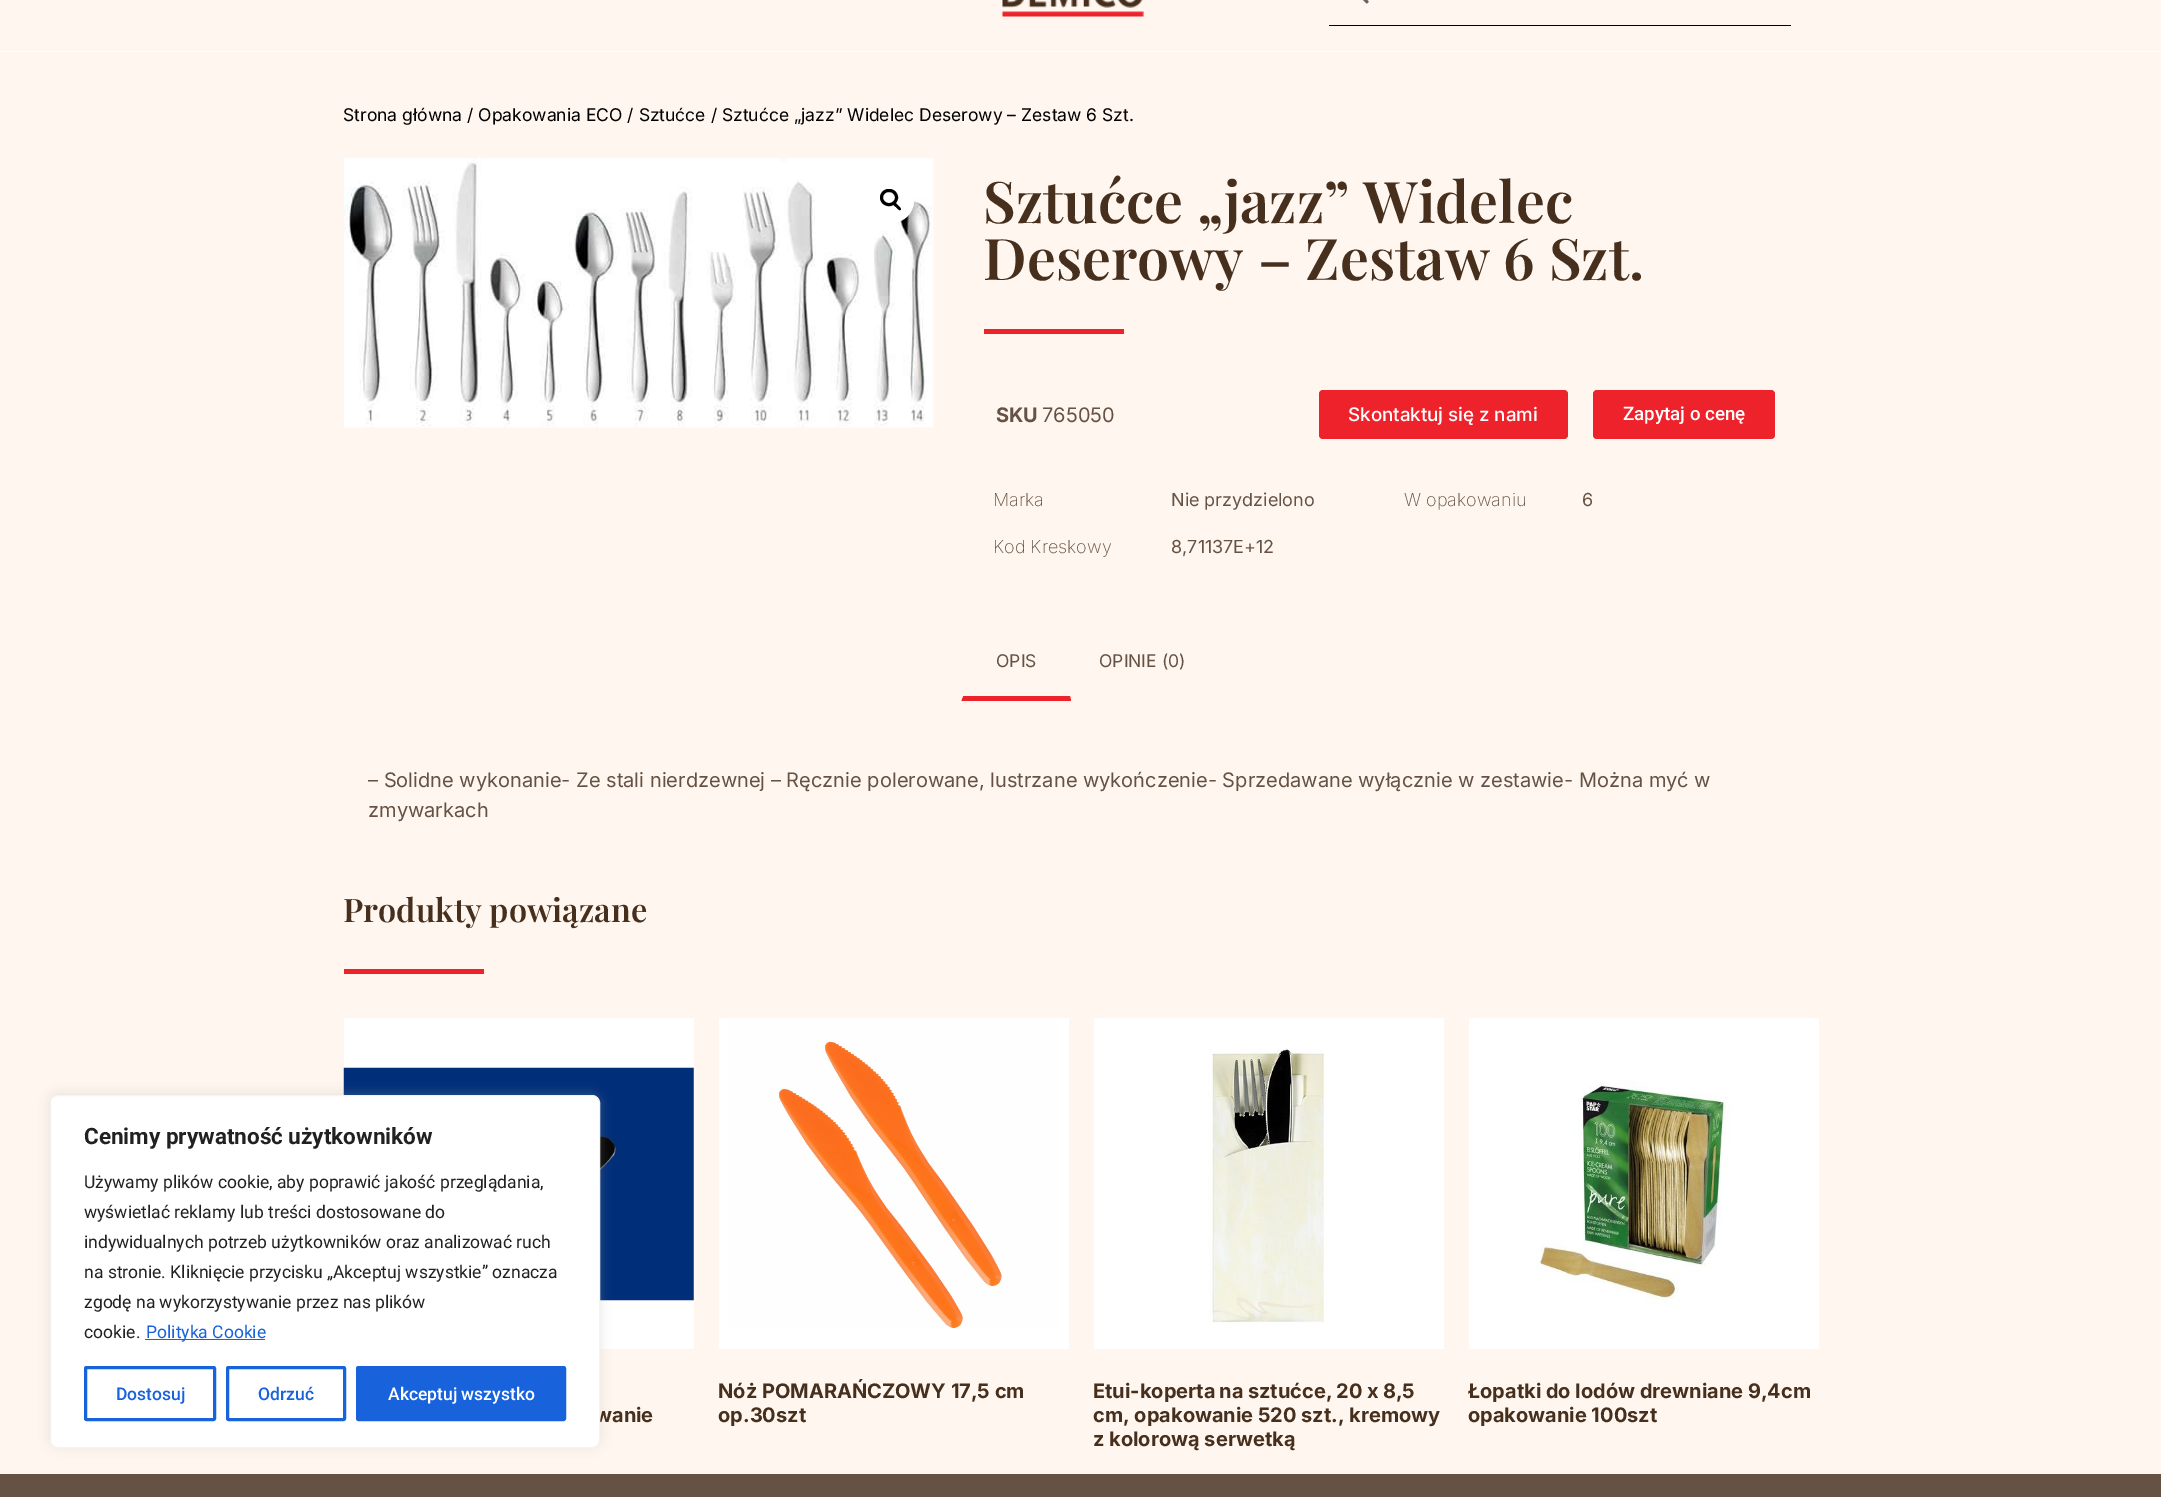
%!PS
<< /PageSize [2161 1497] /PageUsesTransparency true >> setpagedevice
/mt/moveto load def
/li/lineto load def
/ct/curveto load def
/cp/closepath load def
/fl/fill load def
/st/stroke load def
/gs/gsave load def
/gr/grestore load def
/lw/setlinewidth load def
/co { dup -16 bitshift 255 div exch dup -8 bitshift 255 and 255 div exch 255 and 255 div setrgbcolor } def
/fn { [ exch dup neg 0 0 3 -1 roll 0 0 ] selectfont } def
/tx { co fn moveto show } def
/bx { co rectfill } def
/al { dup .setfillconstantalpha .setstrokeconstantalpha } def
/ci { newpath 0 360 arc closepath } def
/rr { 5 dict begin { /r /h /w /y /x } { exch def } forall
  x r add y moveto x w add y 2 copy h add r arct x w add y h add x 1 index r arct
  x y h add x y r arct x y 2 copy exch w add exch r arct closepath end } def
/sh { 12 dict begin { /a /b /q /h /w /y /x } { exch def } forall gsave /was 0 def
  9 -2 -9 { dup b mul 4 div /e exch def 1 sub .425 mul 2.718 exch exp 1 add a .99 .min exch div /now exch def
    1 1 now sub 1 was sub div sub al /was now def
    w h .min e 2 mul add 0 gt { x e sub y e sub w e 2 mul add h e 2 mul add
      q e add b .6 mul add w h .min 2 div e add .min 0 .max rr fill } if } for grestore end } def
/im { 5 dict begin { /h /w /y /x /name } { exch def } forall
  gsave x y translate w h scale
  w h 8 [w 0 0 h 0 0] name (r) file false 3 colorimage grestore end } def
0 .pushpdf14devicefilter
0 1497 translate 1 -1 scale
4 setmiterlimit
0 0 2161 1497 16#FFF7EF bx
0 51 2161 1 16#FFFFFF bx
(media/1.raw) 1002 0 142 17 im
1329 25 462 1 16#000000 bx
(media/2.raw) 1357 0 12 4 im
344 1018 350 331 16#FFFFFF bx
(media/4.raw) 343 1067 351 234 im
16#ACABAB co
50 1094 550 352 8 6 .3 sh
(media/3.raw) 344 158 590 270 im
16#FFFFFF co
891.5 200.5 22.5 ci fl
16#000000 co
3 lw
881.5 190.5 15 14 7 rr st
893.5 202.5 mt 895 201.5 897 204.5 898 205.5 ct 898.5 206 902 208.5 900.5 210 ct 899 211 897 208 896 207 ct 895 206.5 892 204 893.5 202.5 ct cp fl
984 329 140 5 16#ED222B bx
1319 390 249 49 4 rr fl
1593 390 182 49 4 rr fl
1071 700 mt 1071 701 li 961 701 li 963 696 li 1070 696 li cp fl
16#FFF7EF co
961 628 mt 963 626 li 963 627 li 962 630 li 962 696 li 963 696 li 961 701 li cp fl
344 969 140 5 16#ED222B bx
719 1018 350 331 16#FFFFFF bx
(media/5.raw) 728 1017 330 312 im
1094 1018 350 331 16#FFFFFF bx
(media/6.raw) 1103 1017 330 307 im
1469 1018 350 331 16#FFFFFF bx
(media/7.raw) 1478 1017 330 287 im
0 1474 2161 23 16#665244 bx
(Strona główna / Opakowania ECO / Sztućce / Sztućce „jazz” Widelec Deserowy – Zestaw 6 Szt.) 343 121 /Inter-Regular 17.5 16#000000 tx
(Sztućce „jazz” Widelec) 983 223 /PlayfairDisplay-SemiBold 57.5 16#472F1E tx
(Deserowy – Zestaw 6 Szt.) 983 280 /PlayfairDisplay-SemiBold 57.5 16#472F1E tx
(SKU) 996 422 /Inter-Bold 20 16#665244 tx
(765050) 1042 422 /Inter-Regular 20 16#665244 tx
(Skontaktuj się z nami) 1348 421 /Inter-Medium 18.75 16#FFFFFF tx
(Zapytaj o cenę) 1623 420 /Roboto-Medium 18.75 16#FFFFFF tx
(Marka) 993 506 /Inter-ExtraLight 18 16#665244 tx
(Nie przydzielono) 1171 506 /Inter-Regular 18 16#665244 tx
(W opakowaniu) 1404 506 /Inter-ExtraLight 18 16#665244 tx
(6) 1582 506 /Inter-Regular 18 16#665244 tx
(Kod Kreskowy) 993 553 /Inter-ExtraLight 18 16#665244 tx
(8,71137E+12) 1171 553 /Inter-Regular 18 16#665244 tx
(OPIS) 996 667 /Inter-Regular 17.5 16#665244 tx
(OPINIE \(0\)) 1099 667 /Inter-Regular 17.5 16#665244 tx
(– Solidne wykonanie- Ze stali nierdzewnej – Ręcznie polerowane, lustrzane wykończenie- Sprzedawane wyłącznie w zestawie- Można myć w) 368 787 /Inter-Regular 20 16#665244 tx
(zmywarkach) 368 817 /Inter-Regular 20 16#665244 tx
(Produkty powiązane) 343 922 /PlayfairDisplay-SemiBold 32.5 16#472F1E tx
(wanie) 595 1422 /Inter-Bold 20 16#472F1E tx
16#FFFFFF co
50.5 1095.5 549 352 7.5 rr gs fl gr
16#F4F4F4 co
1 lw
st
16#1863DC co
357.5 1367.5 207 52 1 rr gs fl gr
3 lw
st
(Akceptuj wszystko) 388 1400 /Roboto-Medium 17.5 16#FFFFFF tx
16#1863DC co
227.5 1367.5 117 52 1 rr st
(Odrzuć) 258 1400 /Roboto-Medium 17.5 16#1863DC tx
85.5 1367.5 129 52 1 rr st
(Dostosuj) 116 1400 /Roboto-Medium 17.5 16#1863DC tx
145 1339 120 1 16#1863DC bx
(Polityka Cookie) 146 1338 /Roboto-Regular 17.5 16#1863DC tx
(cookie.) 84 1338 /Roboto-Regular 17.5 16#212121 tx
(zgodę na wykorzystywanie przez nas plików) 84 1308 /Roboto-Regular 17.5 16#212121 tx
(na stronie. Kliknięcie przycisku „Akceptuj wszystkie” oznacza) 84 1278 /Roboto-Regular 17.5 16#212121 tx
(indywidualnych potrzeb użytkowników oraz analizować ruch) 84 1248 /Roboto-Regular 17.5 16#212121 tx
(wyświetlać reklamy lub treści dostosowane do) 84 1218 /Roboto-Regular 17.5 16#212121 tx
(Używamy plików cookie, aby poprawić jakość przeglądania,) 84 1188 /Roboto-Regular 17.5 16#212121 tx
(Cenimy prywatność użytkowników) 84 1144 /Roboto-Bold 22.5 16#212121 tx
(Nóż POMARAŃCZOWY 17,5 cm) 718 1398 /Inter-Bold 20 16#472F1E tx
(op.30szt) 718 1422 /Inter-Bold 20 16#472F1E tx
1093 1398 mt -.5 0 32 (Etui-koperta na sztućce, 20 x 8,5) widthshow
(cm, opakowanie 520 szt., kremowy) 1093 1422 /Inter-Bold 20 16#472F1E tx
(z kolorową serwetką) 1093 1446 /Inter-Bold 20 16#472F1E tx
(Łopatki do lodów drewniane 9,4cm) 1468 1398 /Inter-Bold 20 16#472F1E tx
(opakowanie 100szt) 1468 1422 /Inter-Bold 20 16#472F1E tx
.poppdf14devicefilter showpage
